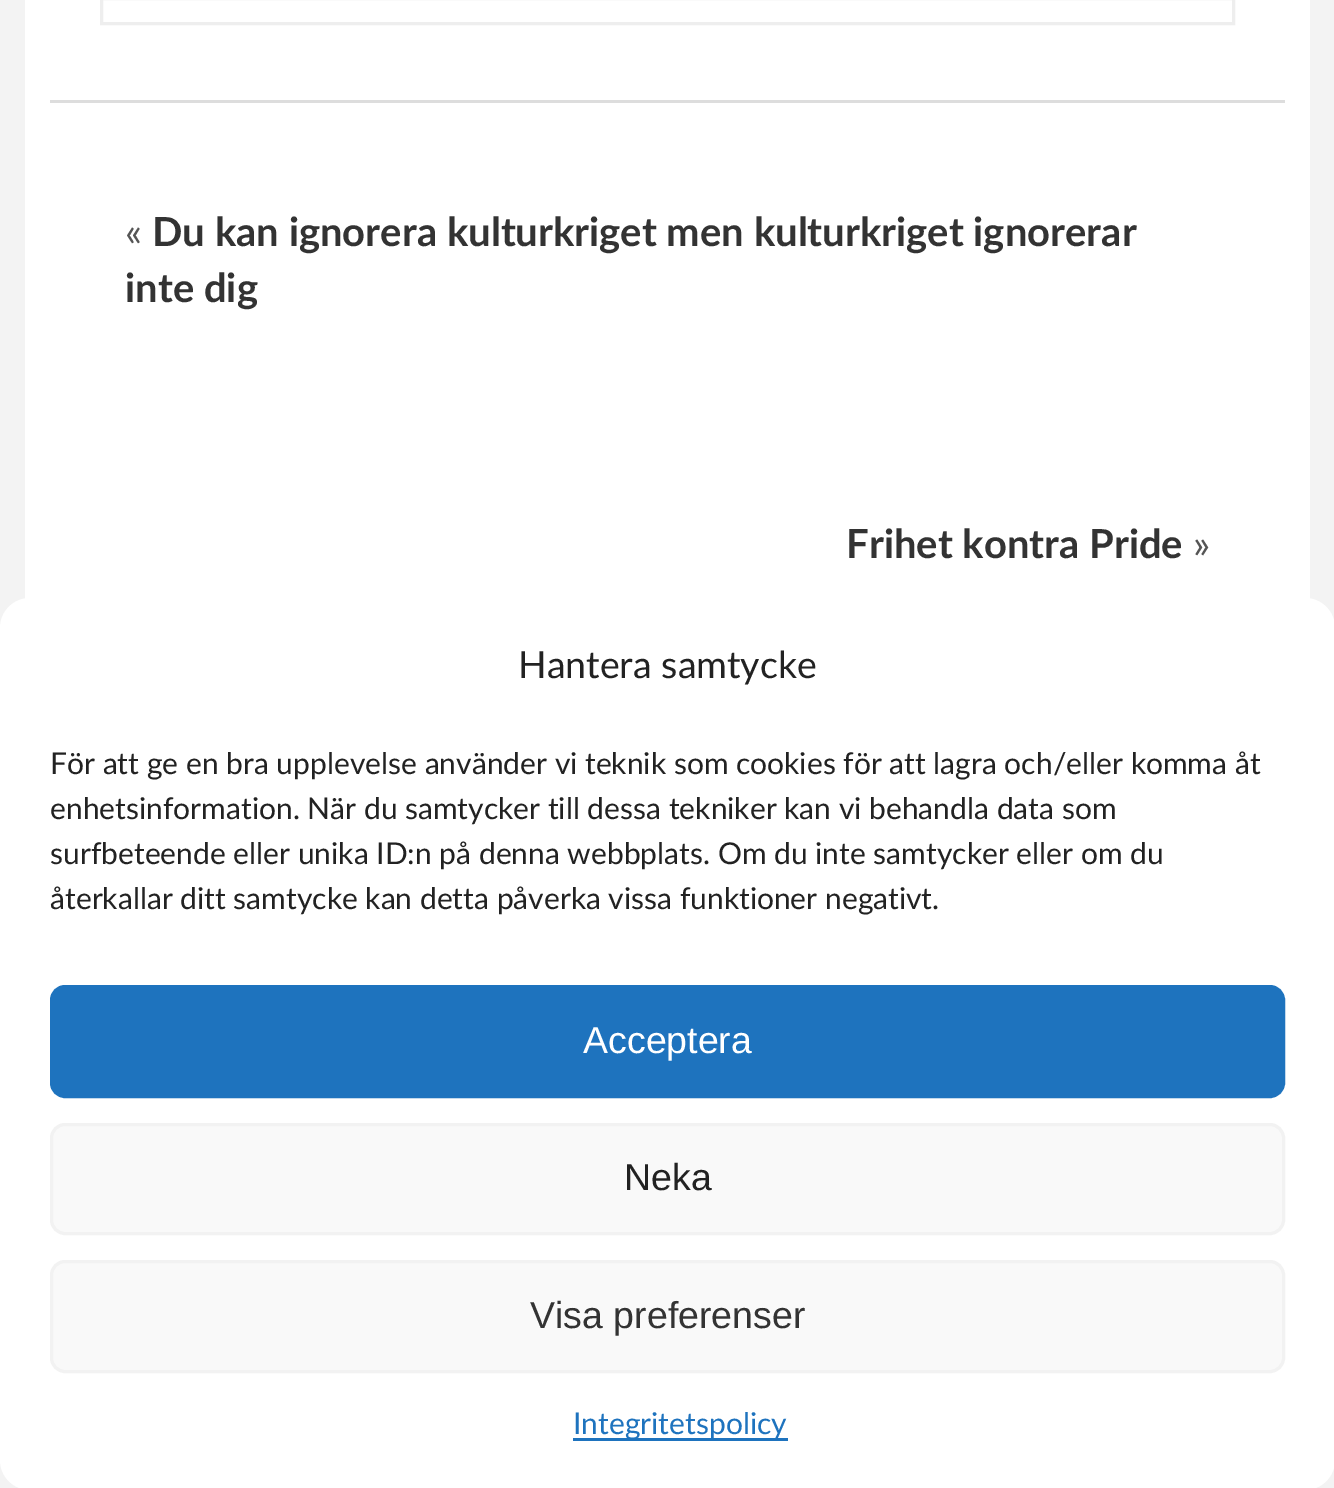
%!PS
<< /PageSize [1334 1488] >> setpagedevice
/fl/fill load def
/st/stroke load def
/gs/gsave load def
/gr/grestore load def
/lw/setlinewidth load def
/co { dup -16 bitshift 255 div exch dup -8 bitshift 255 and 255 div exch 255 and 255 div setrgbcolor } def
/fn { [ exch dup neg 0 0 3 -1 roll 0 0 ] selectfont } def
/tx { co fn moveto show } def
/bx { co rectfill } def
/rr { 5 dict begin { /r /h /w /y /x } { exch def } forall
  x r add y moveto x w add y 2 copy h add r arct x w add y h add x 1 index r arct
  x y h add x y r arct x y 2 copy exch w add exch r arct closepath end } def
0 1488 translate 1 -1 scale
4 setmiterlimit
0 0 1334 1488 16#F3F3F3 bx
25 0 1285 599 16#FFFFFF bx
50 100 1235 3 16#DDDDDD bx
16#EEEEEE co
3 lw
101.5 -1.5 1132 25 rectstroke
16#FFFFFF co
0 598 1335 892 30 rr fl
16#1E73BE co
51.5 986.5 1232 110 13.5 rr gs fl gr
st
16#F9F9F9 co
51.5 1124.5 1232 109 13.5 rr gs fl gr
16#F2F2F2 co
st
16#F9F9F9 co
51.5 1261.5 1232 110 13.5 rr gs fl gr
16#F2F2F2 co
st
573 1438 215 3 16#1E73BE bx
(«) 125 246 /Lato-Regular 40 16#555555 tx
(Du kan ignorera kulturkriget men kulturkriget ignorerar) 152 246 /Lato-Bold 40 16#333333 tx
(inte dig) 125 302 /Lato-Bold 40 16#333333 tx
(Frihet kontra Pride) 846 558 /Lato-Bold 40 16#333333 tx
(») 1193 558 /Lato-Regular 40 16#555555 tx
(Hantera samtycke) 518 678 /Lato-Regular 37.5 16#222222 tx
(För att ge en bra upplevelse använder vi teknik som cookies för att lagra och/eller komma åt) 50 774 /Lato-Regular 30 16#222222 tx
(enhetsinformation. När du samtycker till dessa tekniker kan vi behandla data som) 50 819 /Lato-Regular 30 16#222222 tx
(surfbeteende eller unika ID:n på denna webbplats. Om du inte samtycker eller om du) 50 864 /Lato-Regular 30 16#222222 tx
(återkallar ditt samtycke kan detta påverka vissa funktioner negativt.) 50 909 /Lato-Regular 30 16#222222 tx
(Acceptera) 583 1053 /LiberationSans-Regular 37.5 16#FFFFFF tx
(Neka) 624 1190 /LiberationSans-Regular 37.5 16#222222 tx
(Visa preferenser) 530 1328 /LiberationSans-Regular 37.5 16#333333 tx
(Integritetspolicy) 573 1434 /Lato-Regular 30 16#1E73BE tx
showpage
